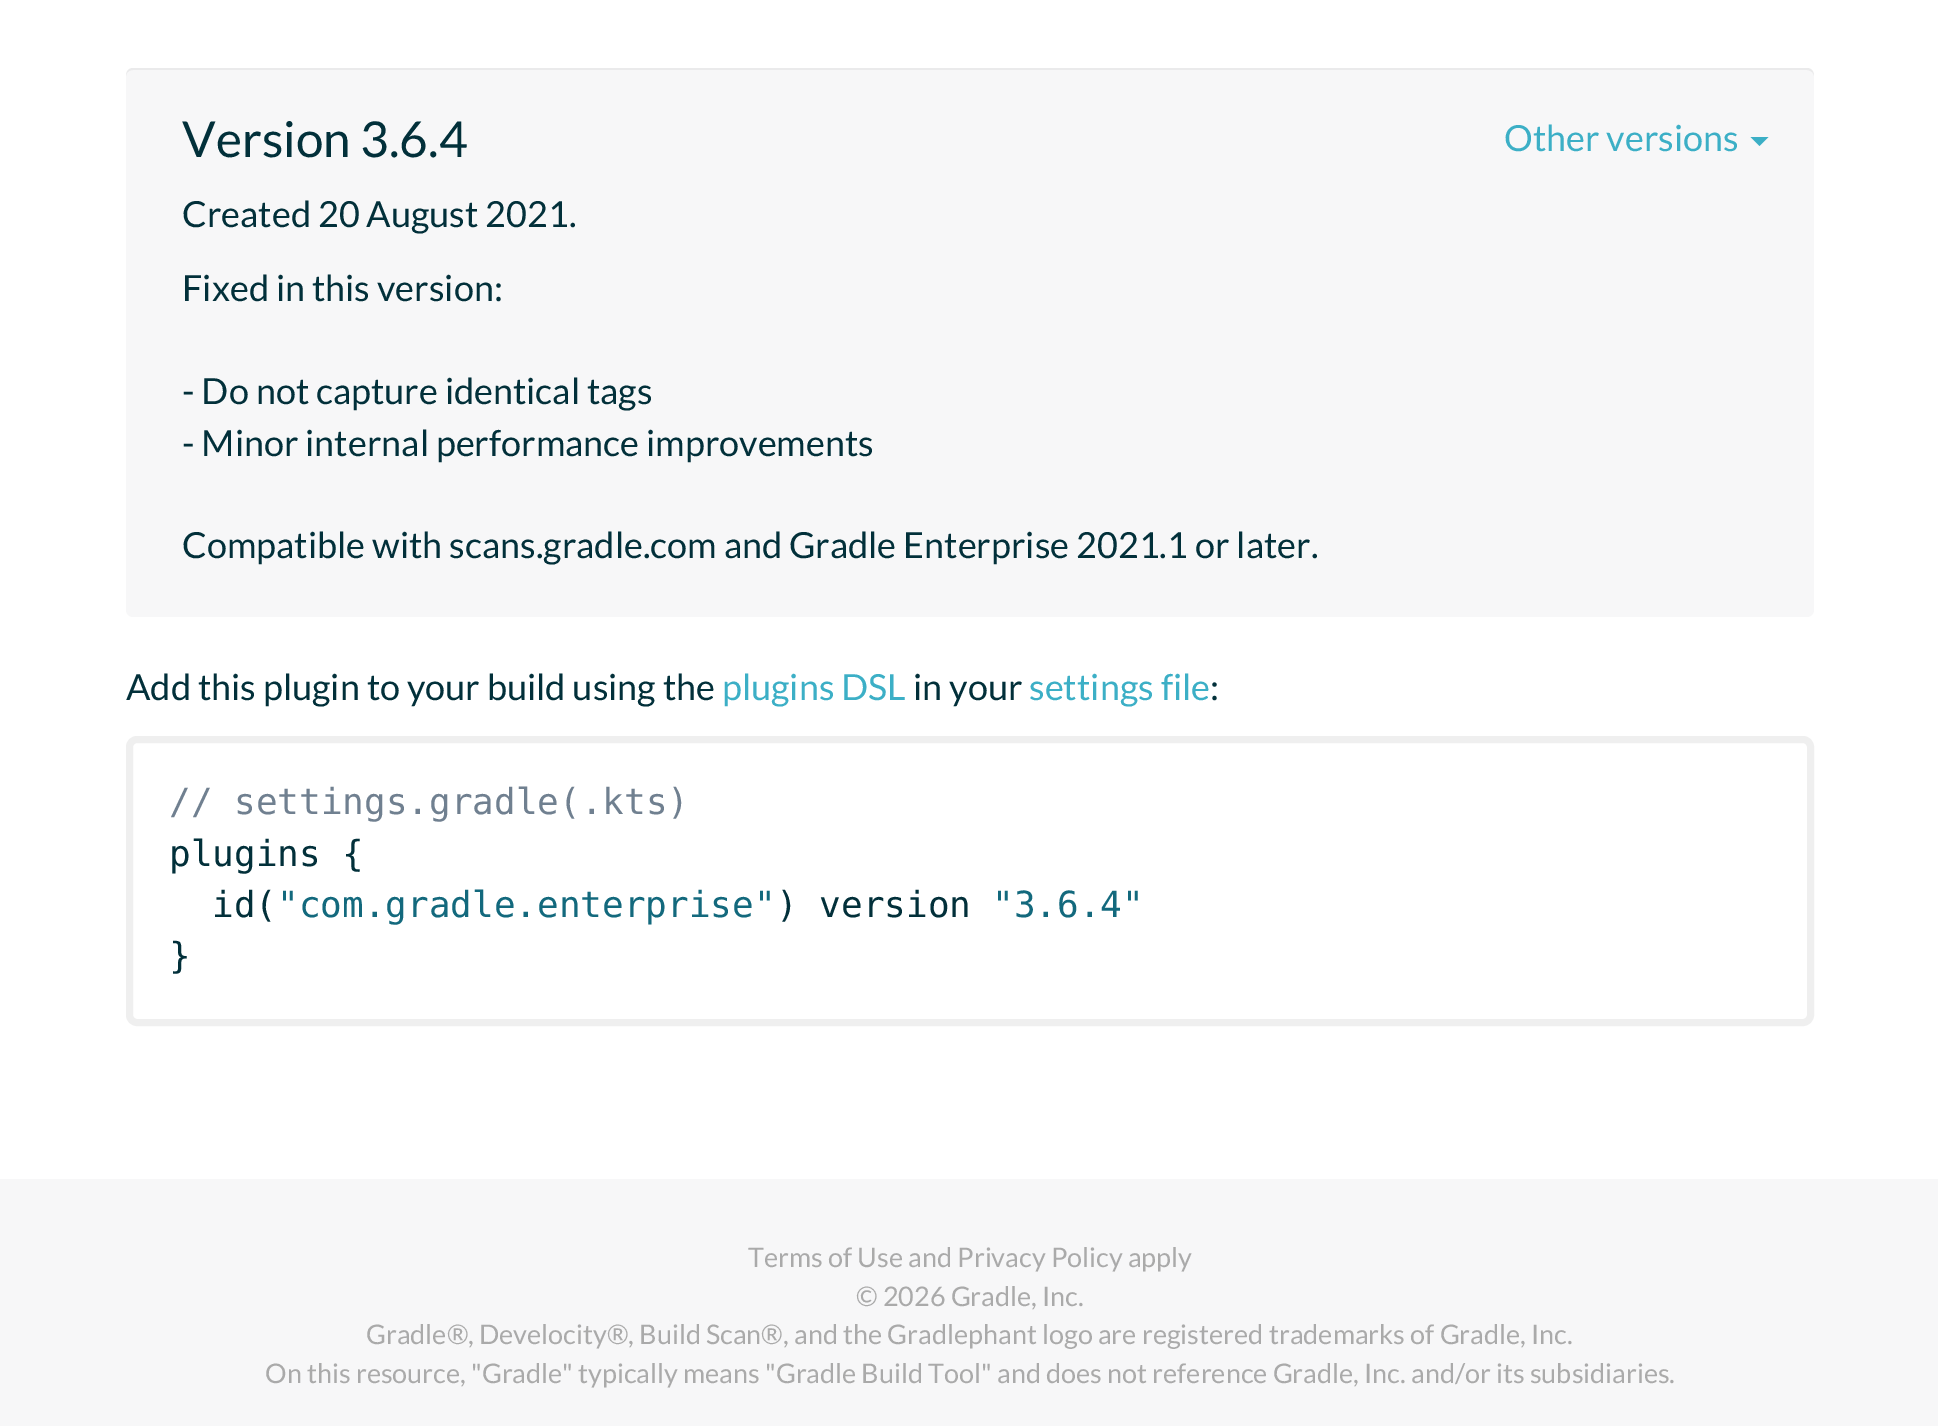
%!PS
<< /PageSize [1938 1426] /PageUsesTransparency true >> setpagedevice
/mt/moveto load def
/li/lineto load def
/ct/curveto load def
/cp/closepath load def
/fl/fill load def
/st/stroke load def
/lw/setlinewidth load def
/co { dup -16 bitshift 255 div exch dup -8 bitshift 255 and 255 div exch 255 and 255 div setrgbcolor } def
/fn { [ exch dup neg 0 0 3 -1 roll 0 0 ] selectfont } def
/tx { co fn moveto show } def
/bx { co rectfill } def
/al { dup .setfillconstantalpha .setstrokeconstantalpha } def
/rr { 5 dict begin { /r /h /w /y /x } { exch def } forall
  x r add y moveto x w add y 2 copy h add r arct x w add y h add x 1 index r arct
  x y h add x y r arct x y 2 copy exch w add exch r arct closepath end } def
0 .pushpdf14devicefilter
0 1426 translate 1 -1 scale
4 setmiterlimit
0 0 1938 1426 16#FFFFFF bx
16#F7F7F8 co
126 68 1688 549 7 rr fl
0.05 al
16#000000 co
133 70 mt 1807 70 li 1810 70 1814 73 1814 76 ct 1814 72 1812 68 1807 68 ct 133 68 li 128 68 126 72 126 76 ct 126 73 129 70 133 70 ct cp fl
1 al
16#3CAFC6 co
1750.5 137 mt 1768.5 137 li 1759.5 146 li cp fl
16#EFEFEF co
7 lw
129.5 739.5 1681 283 7.5 rr st
0 1179 1938 247 16#F7F7F8 bx
(Version 3.6.4) 182 157 /Lato-Regular 49.5 16#02303A tx
(Other versions) 1504 151 /Lato-Regular 36 16#3CAFC6 tx
(Created 20 August 2021.) 182 227 /Lato-Regular 36 16#02303A tx
(Fixed in this version:) 182 301 /Lato-Regular 36 16#02303A tx
(- Do not capture identical tags) 182 404 /Lato-Regular 36 16#02303A tx
(- Minor internal performance improvements) 182 456 /Lato-Regular 36 16#02303A tx
(Compatible with scans.gradle.com and Gradle Enterprise 2021.1 or later.) 182 558 /Lato-Regular 36 16#02303A tx
(Add this plugin to your build using the) 126 700 /Lato-Regular 36 16#02303A tx
(plugins DSL) 722 700 /Lato-Regular 36 16#3CAFC6 tx
(in your) 913 700 /Lato-Regular 36 16#02303A tx
(settings file) 1029 700 /Lato-Regular 36 16#3CAFC6 tx
(:) 1210 700 /Lato-Regular 36 16#02303A tx
(// settings.gradle\(.kts\)) 169 814 /DejaVuSansMono-Regular 36 16#708090 tx
(plugins {) 169 866 /DejaVuSansMono-Regular 36 16#02303A tx
(id\() 212 917 /DejaVuSansMono-Regular 36 16#02303A tx
("com.gradle.enterprise") 277 917 /DejaVuSansMono-Regular 36 16#13697D tx
(\) version) 776 917 /DejaVuSansMono-Regular 36 16#02303A tx
("3.6.4") 992 917 /DejaVuSansMono-Regular 36 16#13697D tx
(}) 169 968 /DejaVuSansMono-Regular 36 16#02303A tx
(Terms of Use and Privacy Policy apply) 748 1267 /Lato-Regular 27 16#AAAAAA tx
(© 2026 Gradle, Inc.) 856 1306 /Lato-Regular 27 16#AAAAAA tx
(Gradle®, Develocity®, Build Scan®, and the Gradlephant logo are registered trademarks of Gradle, Inc.) 366 1344 /Lato-Regular 27 16#AAAAAA tx
(On this resource, "Gradle" typically means "Gradle Build Tool" and does not reference Gradle, Inc. and/or its subsidiaries.) 265 1383 /Lato-Regular 27 16#AAAAAA tx
.poppdf14devicefilter showpage
